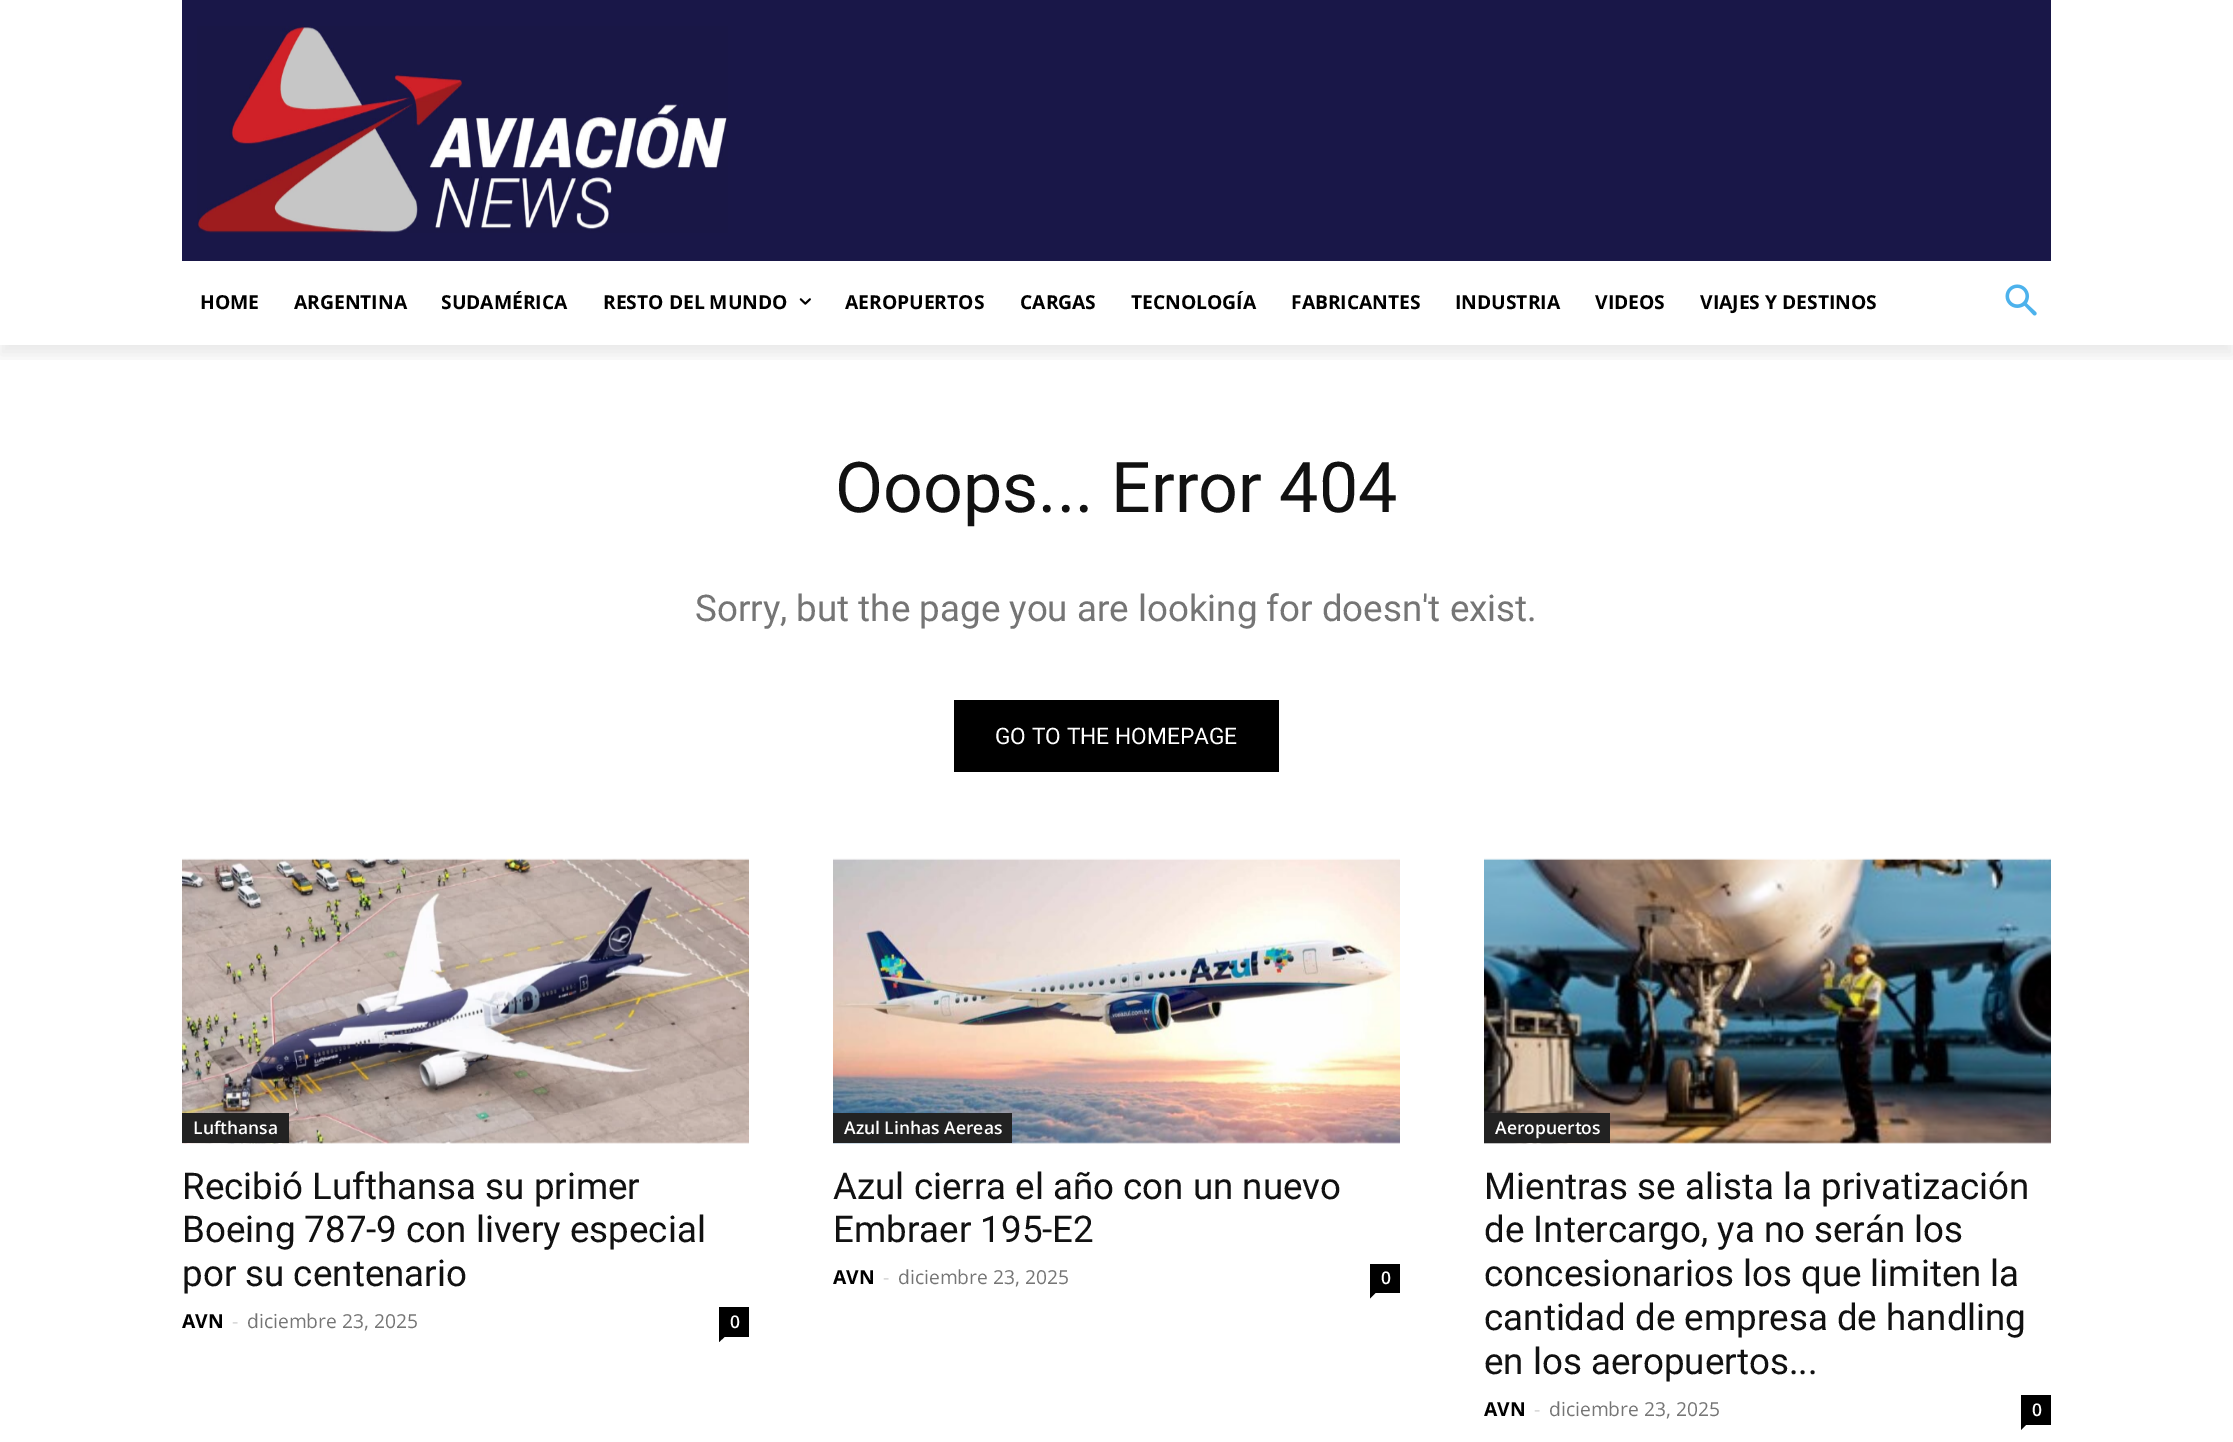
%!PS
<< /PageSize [2233 1442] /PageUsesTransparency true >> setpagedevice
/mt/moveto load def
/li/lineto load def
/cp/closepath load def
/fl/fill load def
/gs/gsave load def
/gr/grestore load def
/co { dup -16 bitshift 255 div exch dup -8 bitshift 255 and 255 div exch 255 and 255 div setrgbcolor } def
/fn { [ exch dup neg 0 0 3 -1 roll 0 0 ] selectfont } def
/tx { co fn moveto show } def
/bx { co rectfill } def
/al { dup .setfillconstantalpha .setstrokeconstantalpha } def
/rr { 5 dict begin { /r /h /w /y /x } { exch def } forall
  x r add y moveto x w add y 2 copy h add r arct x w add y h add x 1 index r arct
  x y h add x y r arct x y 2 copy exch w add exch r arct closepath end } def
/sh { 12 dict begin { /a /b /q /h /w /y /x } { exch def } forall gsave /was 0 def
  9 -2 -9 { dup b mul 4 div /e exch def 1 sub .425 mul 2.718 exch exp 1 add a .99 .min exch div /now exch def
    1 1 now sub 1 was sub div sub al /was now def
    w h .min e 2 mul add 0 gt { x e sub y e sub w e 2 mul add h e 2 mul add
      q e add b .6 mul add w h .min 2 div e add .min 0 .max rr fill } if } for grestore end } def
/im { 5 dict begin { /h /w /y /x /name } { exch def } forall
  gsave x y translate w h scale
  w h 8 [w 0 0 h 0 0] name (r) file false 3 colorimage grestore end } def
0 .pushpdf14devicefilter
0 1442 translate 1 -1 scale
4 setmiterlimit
0 0 2233 1442 16#FFFFFF bx
182 0 1869 261 16#191748 bx
(media/1.raw) 197 26 531 207 im
gs
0 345 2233 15 rectclip
16#000000 co
0 -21 2233 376 0 7 .08 sh
gr
(media/2.raw) 799 298 12 7 im
(media/3.raw) 2005 284 32 32 im
954 700 325 72 16#000000 bx
(media/4.raw) 182 858 567 286 im
182 1113 107 30 16#222222 bx
719 1307 30 30 16#000000 bx
719 1337 mt 724.5 1337 li 719 1342 li cp fl
(media/5.raw) 833 858 567 286 im
833 1113 179 30 16#222222 bx
1370 1264 30 29 16#000000 bx
1370 1293 mt 1375.5 1293 li 1370 1298.5 li cp fl
(media/6.raw) 1484 858 567 286 im
1484 1113 126 30 16#222222 bx
2021 1395 30 30 16#000000 bx
2021 1424.5 mt 2026.5 1424.5 li 2021 1430 li cp fl
(HOME) 200 309 /OpenSans-Bold 19.25 16#000000 tx
(ARGENTINA) 294 309 /OpenSans-Bold 19.25 16#000000 tx
(SUDAMÉRICA) 441 309 /OpenSans-Bold 19.25 16#000000 tx
(RESTO DEL MUNDO) 603 309 /OpenSans-Bold 19.25 16#000000 tx
(AEROPUERTOS) 845 309 /OpenSans-Bold 19.25 16#000000 tx
(CARGAS) 1020 309 /OpenSans-Bold 19.25 16#000000 tx
(TECNOLOGÍA) 1131 309 /OpenSans-Bold 19.25 16#000000 tx
(FABRICANTES) 1291 309 /OpenSans-Bold 19.25 16#000000 tx
(INDUSTRIA) 1455 309 /OpenSans-Bold 19.25 16#000000 tx
(VIDEOS) 1595 309 /OpenSans-Bold 19.25 16#000000 tx
(VIAJES Y DESTINOS) 1700 309 /OpenSans-Bold 19.25 16#000000 tx
(Ooops... Error 404) 835 512 /Roboto-Regular 70 16#111111 tx
(Sorry, but the page you are looking for doesn't exist.) 695 621 /Roboto-Regular 36.75 16#757575 tx
(GO TO THE HOMEPAGE) 995 744 /Roboto-Regular 22.75 16#FFFFFF tx
(Lufthansa) 193 1134 /OpenSans-SemiBold 17.5 16#FFFFFF tx
(Recibió Lufthansa su primer) 182 1199 /Roboto-Regular 36.75 16#111111 tx
(Boeing 787-9 con livery especial) 182 1242 /Roboto-Regular 36.75 16#111111 tx
(por su centenario) 182 1286 /Roboto-Regular 36.75 16#111111 tx
(AVN) 182 1328 /OpenSans-Bold 19.25 16#000000 tx
(-) 232 1328 /OpenSans-Regular 19.25 16#CCCCCC tx
(diciembre 23, 2025) 247 1328 /OpenSans-Regular 19.25 16#757575 tx
(0) 730 1328 /OpenSans-SemiBold 17.5 16#FFFFFF tx
(Azul Linhas Aereas) 844 1134 /OpenSans-SemiBold 17.5 16#FFFFFF tx
(Azul cierra el año con un nuevo) 833 1199 /Roboto-Regular 36.75 16#111111 tx
(Embraer 195-E2) 833 1242 /Roboto-Regular 36.75 16#111111 tx
(AVN) 833 1284 /OpenSans-Bold 19.25 16#000000 tx
(-) 883 1284 /OpenSans-Regular 19.25 16#CCCCCC tx
(diciembre 23, 2025) 898 1284 /OpenSans-Regular 19.25 16#757575 tx
(0) 1381 1284 /OpenSans-SemiBold 17.5 16#FFFFFF tx
(Aeropuertos) 1495 1134 /OpenSans-SemiBold 17.5 16#FFFFFF tx
(Mientras se alista la privatización) 1484 1199 /Roboto-Regular 36.75 16#111111 tx
(de Intercargo, ya no serán los) 1484 1242 /Roboto-Regular 36.75 16#111111 tx
(concesionarios los que limiten la) 1484 1286 /Roboto-Regular 36.75 16#111111 tx
(cantidad de empresa de handling) 1484 1330 /Roboto-Regular 36.75 16#111111 tx
(en los aeropuertos...) 1484 1374 /Roboto-Regular 36.75 16#111111 tx
(AVN) 1484 1416 /OpenSans-Bold 19.25 16#000000 tx
(-) 1534 1416 /OpenSans-Regular 19.25 16#CCCCCC tx
(diciembre 23, 2025) 1549 1416 /OpenSans-Regular 19.25 16#757575 tx
(0) 2032 1416 /OpenSans-SemiBold 17.5 16#FFFFFF tx
.poppdf14devicefilter showpage
